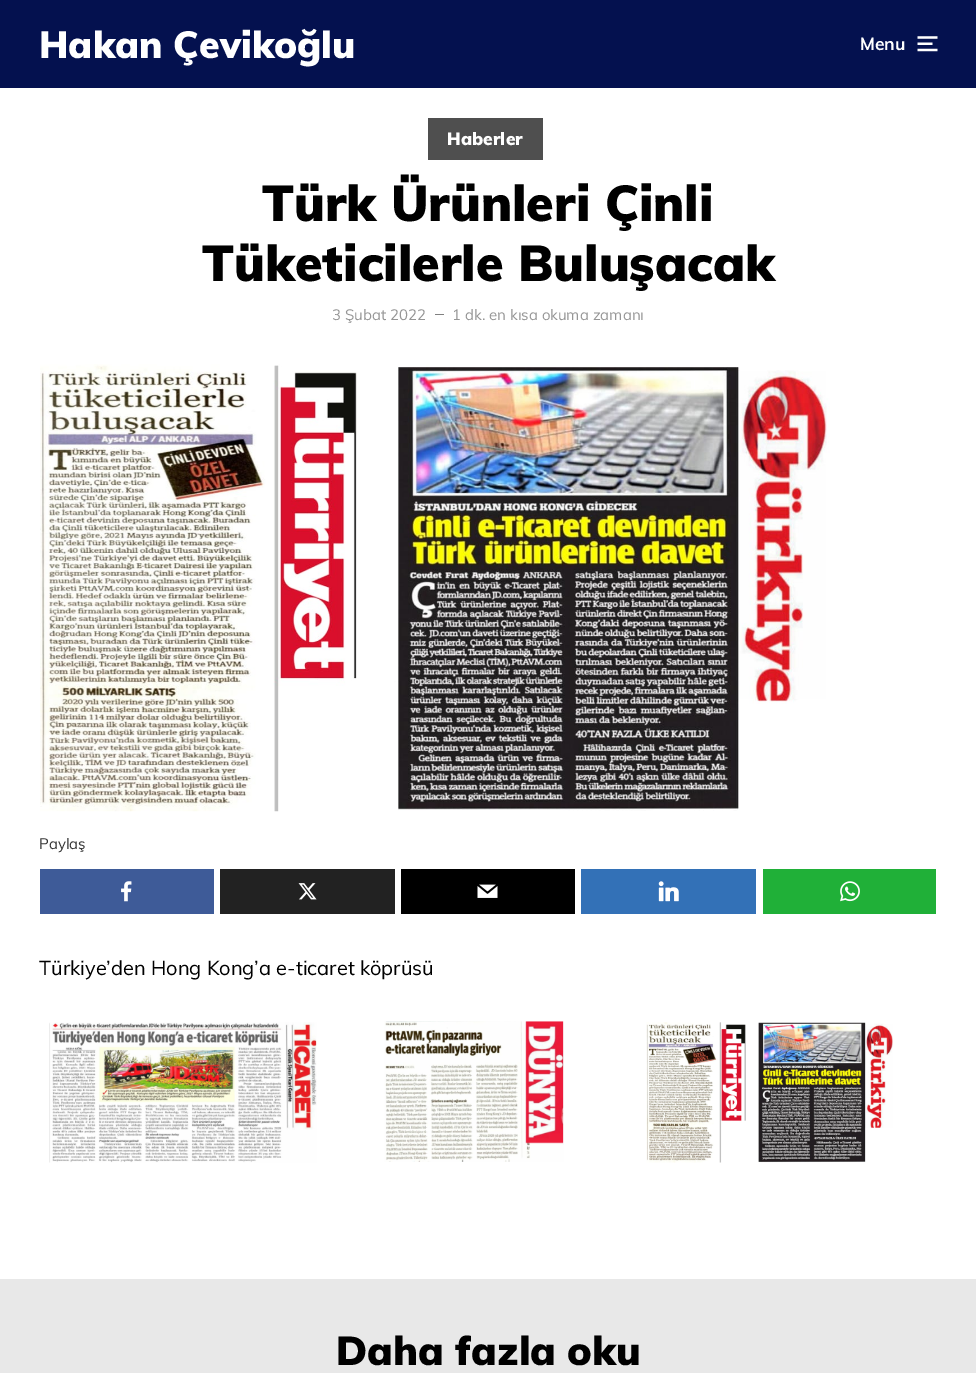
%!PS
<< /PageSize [976 1373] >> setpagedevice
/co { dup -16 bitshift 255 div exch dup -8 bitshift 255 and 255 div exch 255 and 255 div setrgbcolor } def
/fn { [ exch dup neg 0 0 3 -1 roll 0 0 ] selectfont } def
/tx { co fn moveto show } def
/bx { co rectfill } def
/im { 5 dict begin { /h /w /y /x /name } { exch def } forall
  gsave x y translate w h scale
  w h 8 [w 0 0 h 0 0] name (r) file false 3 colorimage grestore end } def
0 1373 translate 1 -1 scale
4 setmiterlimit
0 0 976 1373 16#FFFFFF bx
0 0 976 88 16#04114F bx
(media/1.raw) 917 36 21 16 im
428 118 115 42 16#4F4F4F bx
435 314 9 1 16#808080 bx
(media/2.raw) 40 364 790 448 im
40 869 174 45 16#3E5B98 bx
(media/3.raw) 121 881 11 21 im
220 869 175 45 16#222222 bx
(media/4.raw) 298 883 19 17 im
401 869 174 45 16#000000 bx
(media/5.raw) 477 884 21 14 im
581 869 175 45 16#3371B7 bx
(media/6.raw) 658 881 21 21 im
763 869 173 45 16#20B038 bx
(media/7.raw) 840 881 20 21 im
(media/8.raw) 49 1022 268 141 im
(media/9.raw) 384 1021 180 141 im
(media/10.raw) 646 1022 247 141 im
0 1279 976 94 16#E8E8E8 bx
(Hakan Çevikoğlu) 39 58 /Muli-Black 37.5 16#FFFFFF tx
(Menu) 860 50 /Muli-Bold 17.5 16#FFFFFF tx
(Haberler) 447 145 /Muli-Black 17.5 16#FFFFFF tx
(Türk Ürünleri Çinli) 262 221 /Muli-Black 50 16#000000 tx
(Tüketicilerle Buluşacak) 202 281 /Muli-Black 50 16#000000 tx
(3 Şubat 2022) 332 320 /Muli-Regular 15 16#969696 tx
(1 dk. en kısa okuma zamanı) 452 320 /Muli-Regular 15 16#969696 tx
(Paylaş) 39 849 /Muli-Regular 15 16#333333 tx
(Türkiye’den Hong Kong’a e-ticaret köprüsü) 39 975 /Muli-Regular 20 16#000000 tx
(Daha fazla oku) 336 1365 /Muli-Black 40 16#000000 tx
showpage
